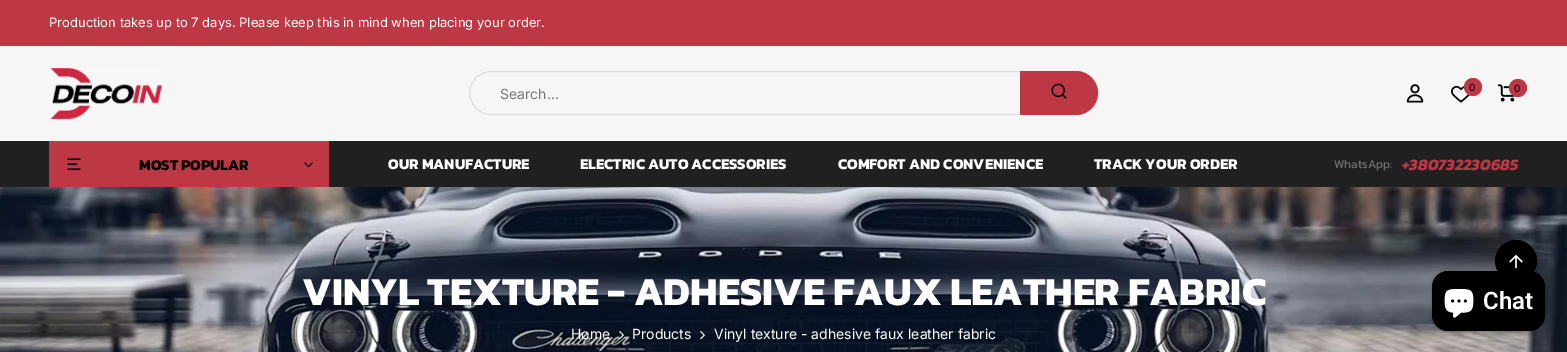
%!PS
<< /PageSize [1567 352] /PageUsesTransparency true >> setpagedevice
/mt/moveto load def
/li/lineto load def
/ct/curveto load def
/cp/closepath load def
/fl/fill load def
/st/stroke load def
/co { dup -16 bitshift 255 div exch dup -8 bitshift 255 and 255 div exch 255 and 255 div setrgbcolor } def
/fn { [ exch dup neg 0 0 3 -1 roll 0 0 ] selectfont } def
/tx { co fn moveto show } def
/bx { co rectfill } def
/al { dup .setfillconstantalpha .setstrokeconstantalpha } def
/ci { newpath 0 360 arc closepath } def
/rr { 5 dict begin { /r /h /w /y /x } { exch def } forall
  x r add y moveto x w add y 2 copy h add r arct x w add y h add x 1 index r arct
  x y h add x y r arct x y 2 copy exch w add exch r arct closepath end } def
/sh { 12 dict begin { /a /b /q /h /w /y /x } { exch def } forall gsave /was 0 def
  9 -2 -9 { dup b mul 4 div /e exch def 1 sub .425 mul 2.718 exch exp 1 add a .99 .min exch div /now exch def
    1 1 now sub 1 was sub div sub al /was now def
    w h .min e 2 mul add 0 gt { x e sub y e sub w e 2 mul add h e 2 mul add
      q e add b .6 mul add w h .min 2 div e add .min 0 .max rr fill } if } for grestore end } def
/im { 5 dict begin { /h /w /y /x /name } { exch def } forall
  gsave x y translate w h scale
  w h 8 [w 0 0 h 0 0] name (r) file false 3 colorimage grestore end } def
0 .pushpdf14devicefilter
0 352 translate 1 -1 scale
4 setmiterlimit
0 0 1567 352 16#BE3744 bx
0 46 1567 95 16#F6F6F6 bx
(media/1.raw) 50 67 113 53 im
16#DDDDDD co
469.5 71.5 629 43 21.5 rr st
16#BE3744 co
1020 71 mt 1076 71 li 1088 71 1098 81 1098 93 ct 1098 105 1088 115 1076 115 ct 1020 115 li cp fl
(media/2.raw) 1051 83 16 16 im
(media/3.raw) 1406 84 18 19 im
(media/4.raw) 1451 85 19 18 im
1473 87 9 ci fl
(media/5.raw) 1497 84 18 18 im
1518 88 9 ci fl
0 141 1567 46 16#202020 bx
49 141 280 46 16#BE3744 bx
(media/6.raw) 67 158 14 13 im
(media/7.raw) 304 162 9 6 im
(media/9.raw) 0 187 1567 165 im
16#000000 co
1516 261 21 ci fl
(media/8.raw) 1509 255 14 14 im
(media/10.raw) 619 331 5 9 im
(media/11.raw) 700 331 5 9 im
1432 271 113 60 16 2.5 .15 sh
1432 271 113 60 16 rr fl
(media/12.raw) 1444 289 30 29 im
(Production takes up to 7 days. Please keep this in mind when placing your order.) 49 27 /Inter-Regular 13 16#FFFFFF tx
(Search...) 500 99 /Inter-Regular 14 16#757575 tx
(0) 1469 91 /Inter-Regular 10 16#000000 tx
(0) 1514 92 /Inter-Regular 10 16#000000 tx
(MOST POPULAR) 139 170 /Kanit-Bold 15 16#000000 tx
(OUR MANUFACTURE) 388 169 /Kanit-Bold 15 16#FFFFFF tx
(ELECTRIC AUTO ACCESSORIES) 580 169 /Kanit-Bold 15 16#FFFFFF tx
(COMFORT AND CONVENIENCE) 838 169 /Kanit-Bold 15 16#FFFFFF tx
(TRACK YOUR ORDER) 1094 169 /Kanit-Bold 15 16#FFFFFF tx
(WhatsApp:) 1334 168 /Kanit-Regular 12 16#6F6F6E tx
(+380732230685) 1402 170 /Kanit-BoldItalic 16 16#BE3744 tx
(VINYL TEXTURE - ADHESIVE FAUX LEATHER FABRIC) 302 305 /Kanit-Bold 40 16#FFFFFF tx
(Home) 571 339 /Inter-Regular 14 16#FFFFFF tx
(Products) 632 339 /Inter-Regular 14 16#FFFFFF tx
(Vinyl texture - adhesive faux leather fabric) 714 339 /Inter-Regular 14 16#FFFFFF tx
(Chat) 1483 309 /Roboto-SemiBold 24 16#FFFFFF tx
.poppdf14devicefilter showpage
